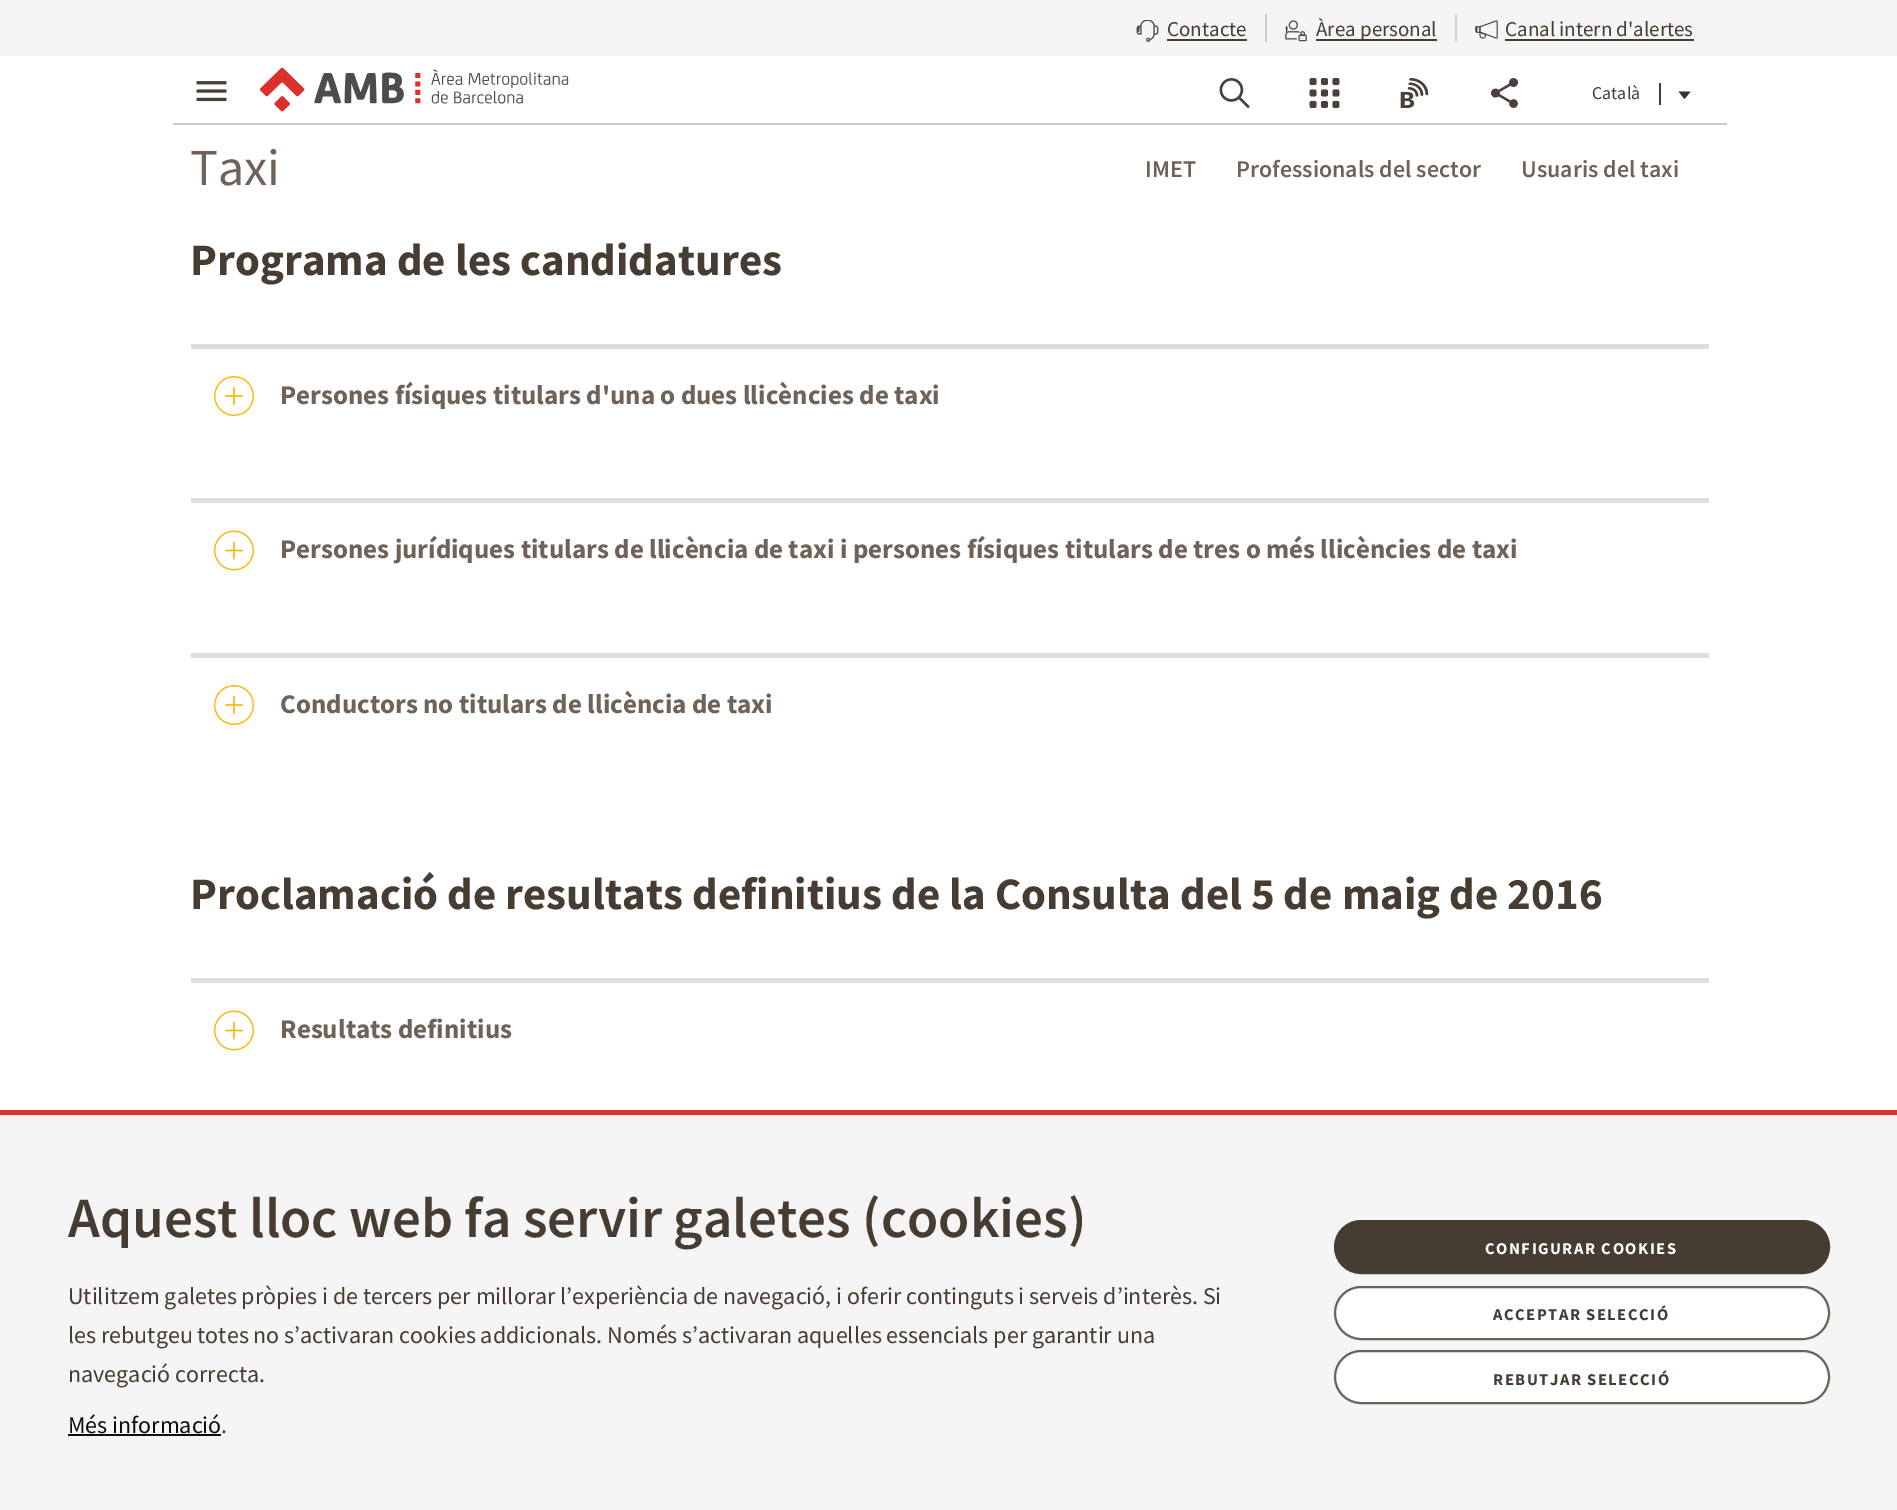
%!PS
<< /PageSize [1897 1510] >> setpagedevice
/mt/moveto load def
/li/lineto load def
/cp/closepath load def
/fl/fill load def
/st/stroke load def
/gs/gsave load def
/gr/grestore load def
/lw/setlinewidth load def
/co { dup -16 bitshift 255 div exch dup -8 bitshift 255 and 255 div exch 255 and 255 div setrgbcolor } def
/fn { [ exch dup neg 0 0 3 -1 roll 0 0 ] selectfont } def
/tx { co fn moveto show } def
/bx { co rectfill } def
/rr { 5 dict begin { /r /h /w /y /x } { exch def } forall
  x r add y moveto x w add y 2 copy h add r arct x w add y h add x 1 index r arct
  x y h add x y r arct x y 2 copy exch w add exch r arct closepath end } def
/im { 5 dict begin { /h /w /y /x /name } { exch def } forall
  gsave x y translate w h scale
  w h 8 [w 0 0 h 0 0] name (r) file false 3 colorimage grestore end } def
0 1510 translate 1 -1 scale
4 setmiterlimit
0 0 1897 1510 16#FFFFFF bx
0 0 1897 56 16#F5F5F5 bx
1265 14 2 28 16#CCCCCC bx
(media/1.raw) 1136 20 23 22 im
1167 39 80 2 16#463C32 bx
1455 14 2 28 16#CCCCCC bx
(media/2.raw) 1285 20 22 22 im
1316 39 121 2 16#463C32 bx
(media/3.raw) 1475 20 23 19 im
1505 39 189 2 16#463C32 bx
173 123 1554 2 16#CCCCCC bx
(media/4.raw) 196 81 31 21 im
(media/5.raw) 260 68 309 44 im
(media/6.raw) 1219 78 31 30 im
(media/7.raw) 1309 78 31 30 im
(media/8.raw) 1400 78 29 30 im
(media/9.raw) 1490 78 29 30 im
1659 83 2 22 16#3E3A37 bx
16#333333 co
1678.5 91.5 mt 1690.5 91.5 li 1684.5 99 li cp fl
191 344 1518 5 16#DDDDDD bx
(media/10.raw) 214 376 40 40 im
191 498 1518 5 16#DDDDDD bx
(media/11.raw) 214 530 40 41 im
191 653 1518 5 16#DDDDDD bx
(media/10.raw) 214 685 40 40 im
191 978 1518 5 16#DDDDDD bx
(media/11.raw) 214 1010 40 41 im
0 1115 1897 395 16#F5F5F5 bx
0 1110 1897 5 16#DB322A bx
68 1434 153 2 16#0E0E0E bx
16#463C32 co
1335 1221 494 52 26 rr gs fl gr
2 lw
st
16#FFFFFF co
1335 1287 494 52 26 rr gs fl gr
16#6E6259 co
st
16#FFFFFF co
1335 1351 494 52 26 rr gs fl gr
16#6E6259 co
st
(') 1136 41 /SourceSansPro-Regular 21 16#463C32 tx
(Contacte) 1167 36 /SourceSansPro-Regular 21 16#463C32 tx
(') 1284 41 /SourceSansPro-Regular 21 16#463C32 tx
(Àrea personal) 1316 36 /SourceSansPro-Regular 21 16#463C32 tx
(') 1474 41 /SourceSansPro-Regular 21 16#463C32 tx
(Canal intern d'alertes) 1505 36 /SourceSansPro-Regular 21 16#463C32 tx
(Català) 1592 99 /SourceSansPro-Regular 18 16#463C32 tx
(Taxi) 190 185 /SourceSansPro-Regular 52 16#6E6259 tx
(IMET) 1145 177 /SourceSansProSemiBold-SemiBold 24 16#6E6259 tx
(Professionals del sector) 1236 177 /SourceSansProSemiBold-SemiBold 24 16#6E6259 tx
(Usuaris del taxi) 1521 177 /SourceSansProSemiBold-SemiBold 24 16#6E6259 tx
(Programa de les candidatures) 190 275 /SourceSansPro-Bold 45 16#463C32 tx
(Persones físiques titulars d'una o dues llicències de taxi) 280 404 /SourceSansPro-Bold 27 16#6E6259 tx
(Persones jurídiques titulars de llicència de taxi i persones físiques titulars de tres o més llicències de taxi) 280 558 /SourceSansPro-Bold 27 16#6E6259 tx
(Conductors no titulars de llicència de taxi) 280 713 /SourceSansPro-Bold 27 16#6E6259 tx
(Proclamació de resultats definitius de la Consulta del 5 de maig de 2016) 190 909 /SourceSansPro-Bold 45 16#463C32 tx
(Resultats definitius) 280 1038 /SourceSansPro-Bold 27 16#6E6259 tx
(Aquest lloc web fa servir galetes \(cookies\)) 68 1237 /SourceSansProSemiBold-SemiBold 57 16#463C32 tx
(Utilitzem galetes pròpies i de tercers per millorar l’experiència de navegació, i oferir continguts i serveis d’interès. Si) 68 1304 /SourceSansPro-Regular 24 16#463C32 tx
(les rebutgeu totes no s’activaran cookies addicionals. Només s’activaran aquelles essencials per garantir una) 68 1343 /SourceSansPro-Regular 24 16#463C32 tx
(navegació correcta.) 68 1382 /SourceSansPro-Regular 24 16#463C32 tx
(Més informació) 68 1433 /SourceSansPro-Regular 24 16#0E0E0E tx
(.) 221 1433 /SourceSansPro-Regular 24 16#463C32 tx
/SourceSansPro-Bold 16.5 fn
16#FFFFFF co
1485 1254 mt 1.5 0 (CONFIGURAR COOKIES) ashow
16#463C32 co
1493 1320 mt 1.5 0 (ACCEPTAR SELECCIÓ) ashow
1493 1385 mt 1.5 0 (REBUTJAR SELECCIÓ) ashow
showpage
